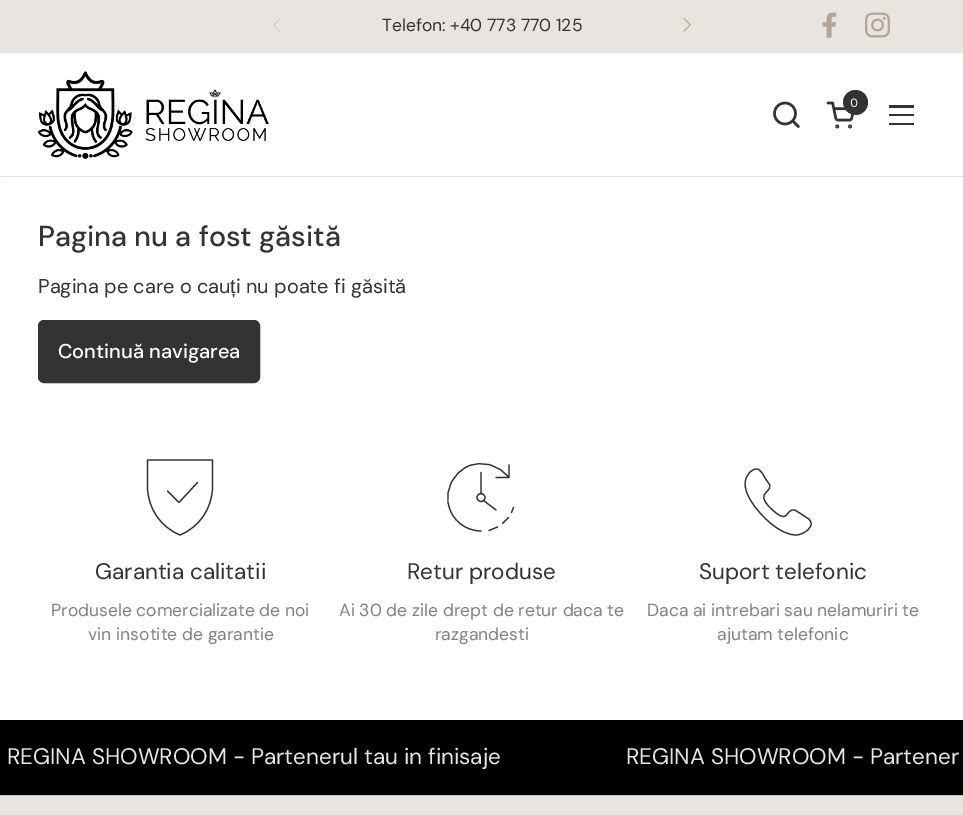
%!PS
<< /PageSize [963 815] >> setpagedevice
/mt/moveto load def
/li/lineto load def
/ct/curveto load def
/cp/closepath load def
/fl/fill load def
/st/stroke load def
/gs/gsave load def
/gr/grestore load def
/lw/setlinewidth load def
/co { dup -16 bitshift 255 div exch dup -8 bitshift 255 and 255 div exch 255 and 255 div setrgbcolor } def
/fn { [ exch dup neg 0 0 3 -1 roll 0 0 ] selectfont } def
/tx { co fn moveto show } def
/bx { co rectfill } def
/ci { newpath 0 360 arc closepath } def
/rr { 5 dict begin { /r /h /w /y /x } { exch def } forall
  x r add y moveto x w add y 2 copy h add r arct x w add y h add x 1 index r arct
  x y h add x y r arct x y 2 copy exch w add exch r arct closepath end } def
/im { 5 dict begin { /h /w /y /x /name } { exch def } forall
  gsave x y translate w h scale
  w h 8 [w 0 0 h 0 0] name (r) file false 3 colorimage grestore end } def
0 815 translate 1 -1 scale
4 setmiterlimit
0 0 963 815 16#FFFFFF bx
0 0 963 53 16#E8E4DF bx
(media/1.raw) 273 18 8 14 im
(media/2.raw) 683 18 8 14 im
(media/3.raw) 822 12 15 26 im
(media/4.raw) 865 12 25 26 im
(media/5.raw) 37 71 232 88 im
(media/6.raw) 773 101 27 27 im
16#333333 co
855.5 102.5 12.5 ci fl
889 105 25 3 16#333333 bx
889 114 25 2 16#333333 bx
889 123 25 2 16#333333 bx
1 176 962 1 16#E0E0E0 bx
16#333333 co
38.5 320.5 221 62 5.5 rr gs fl gr
st
1.2 lw
1 setlinecap
1 setlinejoin
147.5 460 mt 212.5 460 li 212.5 487.5 li 212 508.5 199.5 527 180 535 ct 160.5 527 148 508.5 147.5 487.5 ct cp st
167.5 491 mt 179 502.5 li 197.5 482.5 li st
509 465 mt 509 477.5 li 496 477.5 li 481 531 mt 465.5 531 451.5 520 448.5 504.5 ct 445 489 453 473.5 467.5 466.5 ct 482 460 499 464.5 508.5 477.5 ct 497.5 527 mt 489 530.5 li 508.5 517.5 mt 502.5 523.5 li 513.5 507.5 mt 511.5 512.5 li st
0 setlinecap
0 setlinejoin
481 497.5 4 ci st
1 setlinecap
1 setlinejoin
483.5 500.5 mt 496 510 li 481 472.5 mt 481 494 li st
808 518.5 mt 817.5 525 804 535 796 535 ct 780 535 761.5 516.5 753 504 ct 748.5 497.5 743.5 488.5 745.5 480.5 ct 746 477.5 747.5 475 749.5 472.5 ct 752 470.5 755.5 467.5 758.5 469.5 ct 761.5 471 763.5 475 765 478 ct 769.5 484.5 li 772 491 762 492 764 498.5 ct 765.5 504 771 509 775.5 512.5 ct 788.5 523.5 786 508.5 794.5 510 ct 796.5 511 li cp st
0 720 963 75 16#000000 bx
0 796 963 19 16#E8E4DF bx
0 795 963 1 16#C5C2BE bx
(Telefon: +40 773 770 125) 382 31 /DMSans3-Regular 17.5 16#333333 tx
(0) 850 107 /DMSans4-Regular 12 16#FFFFFF tx
(media/7.raw) 826 101 29 28 im
(Pagina nu a fost găsită) 38 246 /DMSans-Medium 28.75 16#333333 tx
(Pagina pe care o cau i nu poate fi găsită) 38 293 /DMSans-Regular 20 16#333333 tx
(ț) 230 293 /LiberationSans-Regular 20 16#333333 tx
(Continuă navigarea) 58 358 /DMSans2-Medium 20 16#FFFFFF tx
(Garantia calitatii) 95 579 /DMSans2-Regular 22.5 16#333333 tx
(Produsele comercializate de noi) 51 616 /DMSans3-Regular 17.5 16#818181 tx
(vin insotite de garantie) 88 640 /DMSans3-Regular 17.5 16#818181 tx
(Retur produse) 407 579 /DMSans2-Regular 22.5 16#333333 tx
(Ai 30 de zile drept de retur daca te) 339 616 /DMSans3-Regular 17.5 16#818181 tx
(razgandesti) 435 640 /DMSans3-Regular 17.5 16#818181 tx
(Suport telefonic) 699 579 /DMSans2-Regular 22.5 16#333333 tx
(Daca ai intrebari sau nelamuriri te) 647 616 /DMSans3-Regular 17.5 16#818181 tx
(ajutam telefonic) 717 640 /DMSans3-Regular 17.5 16#818181 tx
(REGINA SHOWROOM - Partenerul tau in finisaje) 7 764 /DMSans2-Regular 22.5 16#E8E4DF tx
(REGINA SHOWROOM - Partener) 626 764 /DMSans2-Regular 22.5 16#E8E4DF tx
showpage
